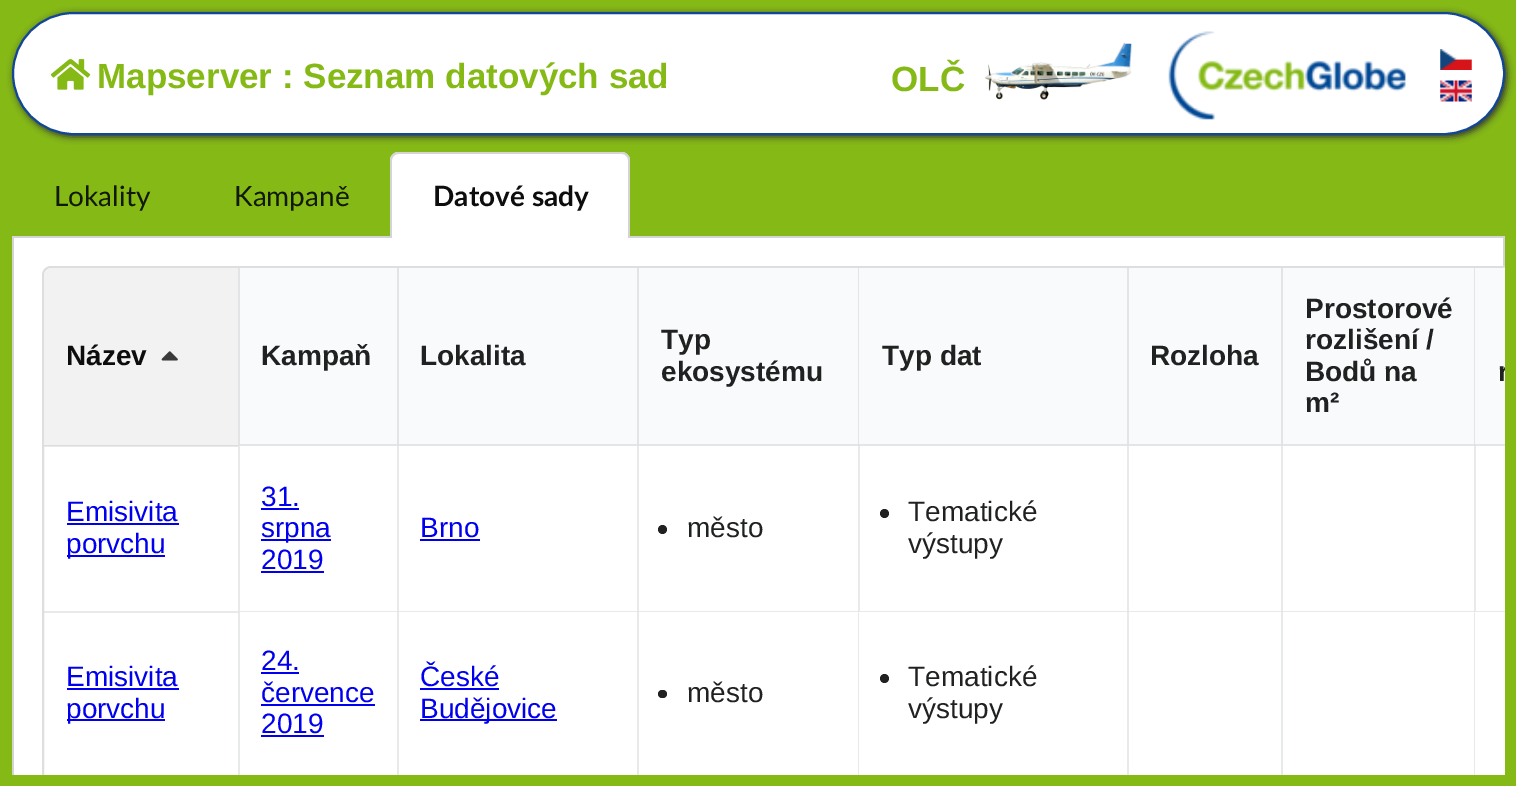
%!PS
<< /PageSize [1516 786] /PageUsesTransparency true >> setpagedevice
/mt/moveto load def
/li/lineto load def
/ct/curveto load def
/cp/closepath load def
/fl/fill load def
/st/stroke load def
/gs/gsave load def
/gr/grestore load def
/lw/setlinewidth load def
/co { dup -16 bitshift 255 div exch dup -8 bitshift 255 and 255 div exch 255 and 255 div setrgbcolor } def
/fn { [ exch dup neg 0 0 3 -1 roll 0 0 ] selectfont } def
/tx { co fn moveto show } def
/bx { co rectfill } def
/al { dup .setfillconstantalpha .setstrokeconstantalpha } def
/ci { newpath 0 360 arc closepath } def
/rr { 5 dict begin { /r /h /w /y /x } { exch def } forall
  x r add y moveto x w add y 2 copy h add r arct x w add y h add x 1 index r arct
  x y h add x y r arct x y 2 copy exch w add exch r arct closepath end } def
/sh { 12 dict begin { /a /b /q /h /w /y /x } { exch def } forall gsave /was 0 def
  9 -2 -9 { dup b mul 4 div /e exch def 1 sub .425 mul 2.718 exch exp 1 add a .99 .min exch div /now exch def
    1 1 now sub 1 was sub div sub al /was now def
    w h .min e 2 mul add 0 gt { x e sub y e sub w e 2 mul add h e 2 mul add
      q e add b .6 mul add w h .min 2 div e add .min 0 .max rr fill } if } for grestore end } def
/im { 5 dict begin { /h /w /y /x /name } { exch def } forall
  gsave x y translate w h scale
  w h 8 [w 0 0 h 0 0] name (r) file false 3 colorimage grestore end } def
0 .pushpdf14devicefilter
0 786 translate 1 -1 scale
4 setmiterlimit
0 0 1516 786 16#85B916 bx
16#333333 co
14 14 1493 123 61.5 3.5 1 sh
16#FFFFFF co
13 13 1491 121 60.5 rr gs fl gr
16#114796 co
2 lw
st
(media/1.raw) 50 59 41 31 im
(media/2.raw) 985 42 147 58 im
(media/3.raw) 1168 31 238 89 im
(media/4.raw) 1440 49 32 21 im
(media/5.raw) 1440 80 32 22 im
12 236 1493 2 16#D4D4D5 bx
16#FFFFFF co
399 152 mt 621 152 li 626 152 630 156 630 161 ct 630 238 li 390 238 li 390 161 li 390 156 394 152 399 152 ct cp fl
16#D4D4D5 co
398 152 mt 622 152 li 626 152 630 156 630 160 ct 630 238 li 390 238 li 390 160 li 390 156 394 152 398 152 ct cp 398 154 mt 622 154 li 625 154 628 157 628 160 ct 628 238 li 392 238 li 392 160 li 392 157 395 154 398 154 ct cp eofill
14 238 1489 537 16#FFFFFF bx
gs
12 152 1493 623 rectclip
16#D4D4D5 co
12 238 mt 1505 238 li 1505 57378 li 1505 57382 1501 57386 1497 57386 ct 20 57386 li 16 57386 12 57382 12 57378 ct cp 14 238 mt 1503 238 li 1503 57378 li 1503 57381 1500 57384 1497 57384 ct 20 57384 li 17 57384 14 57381 14 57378 ct cp eofill
gr
51 266 mt 1505 266 li 1505 775 li 42 775 li 42 275 li 42 270 46 266 51 266 ct cp fl
44 446 194 1 16#E9E9E9 bx
gs
12 152 1493 623 rectclip
16#DEDEDE co
43 267 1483 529 8 rr st
gr
16#F2F2F2 co
53 268 mt 238 268 li 238 446 li 44 446 li 44 277 li 44 272 48 268 53 268 ct cp fl
44 445 194 1 16#DDDDDE bx
(media/6.raw) 161 351 17 10 im
238 268 1267 178 16#F9FAFB bx
16#E3E5E6 co
397 446 mt 238 446 li 240 444 li 397 444 li cp fl
0.1 al
16#222426 co
238 446 mt 238 268 li 240 268 li 240 444 li cp fl
1 al
16#E3E5E6 co
637 446 mt 397 446 li 399 444 li 637 444 li cp fl
0.1 al
16#222426 co
397 446 mt 397 268 li 399 268 li 399 444 li cp fl
1 al
16#E3E5E6 co
858 446 mt 637 446 li 639 444 li 858 444 li cp fl
0.1 al
16#222426 co
637 446 mt 637 268 li 639 268 li 639 444 li cp fl
1 al
16#E3E5E6 co
1127 446 mt 858 446 li 859 444 li 1127 444 li cp fl
0.1 al
16#222426 co
858 446 mt 858 268 li 859 268 li 859 444 li cp fl
1 al
16#E3E5E6 co
1281 446 mt 1127 446 li 1129 444 li 1281 444 li cp fl
0.1 al
16#222426 co
1127 446 mt 1127 268 li 1129 268 li 1129 444 li cp fl
1 al
16#E3E5E6 co
1474 446 mt 1281 446 li 1283 444 li 1474 444 li cp fl
0.1 al
16#222426 co
1281 446 mt 1281 268 li 1283 268 li 1283 444 li cp fl
gs
12 152 1493 623 rectclip
1 al
16#E3E5E6 co
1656 446 mt 1474 446 li 1475 444 li 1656 444 li cp fl
gr
1474 446 mt 1474 268 li 1475 268 li 1475 444 li cp fl
1 al
67 523 112 2 16#0000EE bx
67 555 98 2 16#0000EE bx
238 446 2 165 16#E9E9E9 bx
261 508 38 2 16#0000EE bx
261 539 70 2 16#0000EE bx
261 571 63 2 16#0000EE bx
397 446 2 165 16#E9E9E9 bx
420 539 60 2 16#0000EE bx
637 446 2 165 16#E9E9E9 bx
16#212121 co
662.5 529.5 4.5 ci fl
858 446 2 165 16#E9E9E9 bx
16#212121 co
884.5 513.5 4.5 ci fl
1127 446 2 165 16#E9E9E9 bx
1281 446 2 165 16#E9E9E9 bx
1474 446 2 165 16#E9E9E9 bx
44 611 194 2 16#E9E9E9 bx
67 688 112 2 16#0000EE bx
67 719 98 2 16#0000EE bx
16#E9E9E9 co
238 611 mt 397 611 li 397 612 li 240 612 li cp fl
0.1 al
16#222426 co
238 775 mt 238 611 li 240 612 li 240 775 li cp fl
1 al
261 672 38 2 16#0000EE bx
261 704 114 2 16#0000EE bx
261 735 63 2 16#0000EE bx
16#E9E9E9 co
397 611 mt 637 611 li 637 612 li 399 612 li cp fl
0.1 al
16#222426 co
397 775 mt 397 611 li 399 612 li 399 775 li cp fl
1 al
420 688 79 2 16#0000EE bx
420 719 137 2 16#0000EE bx
16#E9E9E9 co
637 611 mt 858 611 li 858 612 li 639 612 li cp fl
0.1 al
16#222426 co
637 775 mt 637 611 li 639 612 li 639 775 li cp fl
1 al
16#212121 co
658 690 9 8 4 rr fl
16#E9E9E9 co
858 611 mt 1127 611 li 1127 612 li 859 612 li cp fl
0.1 al
16#222426 co
858 775 mt 858 611 li 859 612 li 859 775 li cp fl
1 al
16#212121 co
884.5 678.5 4.5 ci fl
16#E9E9E9 co
1127 611 mt 1281 611 li 1281 612 li 1129 612 li cp fl
0.1 al
16#222426 co
1127 775 mt 1127 611 li 1129 612 li 1129 775 li cp fl
1 al
16#E9E9E9 co
1281 611 mt 1474 611 li 1474 612 li 1283 612 li cp fl
0.1 al
16#222426 co
1281 775 mt 1281 611 li 1283 612 li 1283 775 li cp fl
gs
12 152 1493 623 rectclip
1 al
16#E9E9E9 co
1474 611 mt 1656 611 li 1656 612 li 1475 612 li cp fl
gr
1474 775 mt 1474 611 li 1475 612 li 1475 775 li cp fl
1 al
(Mapserver : Seznam datových sad) 97 88 /LiberationSans-Bold 35 16#85B916 tx
(OLČ) 891 91 /LiberationSans-Bold 35 16#85B916 tx
(Lokality) 54 206 /Lato-Regular 28 16#111803 tx
(Kampaně) 234 206 /Lato-Regular 28 16#111803 tx
(Datové sady) 433 206 /Lato-Bold 28 16#0D0D0D tx
(Název) 66 365 /LiberationSans-Bold 28 16#0D0D0D tx
(Kampaň) 261 365 /LiberationSans-Bold 28 16#202121 tx
(Lokalita) 420 365 /LiberationSans-Bold 28 16#202121 tx
(Typ) 661 349 /LiberationSans-Bold 28 16#202121 tx
(ekosystému) 661 381 /LiberationSans-Bold 28 16#202121 tx
(Typ dat) 882 365 /LiberationSans-Bold 28 16#202121 tx
(Rozloha) 1150 365 /LiberationSans-Bold 28 16#202121 tx
(Prostorové) 1305 318 /LiberationSans-Bold 28 16#202121 tx
(rozlišení /) 1305 349 /LiberationSans-Bold 28 16#202121 tx
(Bodů na) 1305 381 /LiberationSans-Bold 28 16#202121 tx
(m²) 1305 412 /LiberationSans-Bold 28 16#202121 tx
gs
12 152 1493 623 rectclip
(r) 1498 381 /LiberationSans-Bold 28 16#202121 tx
gr
(Emisivita) 66 521 /LiberationSans-Regular 28 16#0000EE tx
(porvchu) 66 553 /LiberationSans-Regular 28 16#0000EE tx
(31.) 261 506 /LiberationSans-Regular 28 16#0000EE tx
(srpna) 261 537 /LiberationSans-Regular 28 16#0000EE tx
(2019) 261 569 /LiberationSans-Regular 28 16#0000EE tx
(Brno) 420 537 /LiberationSans-Regular 28 16#0000EE tx
(město) 687 537 /LiberationSans-Regular 28 16#202121 tx
(Tematické) 908 521 /LiberationSans-Regular 28 16#202121 tx
(výstupy) 908 553 /LiberationSans-Regular 28 16#202121 tx
(Emisivita) 66 686 /LiberationSans-Regular 28 16#0000EE tx
(porvchu) 66 718 /LiberationSans-Regular 28 16#0000EE tx
(24.) 261 670 /LiberationSans-Regular 28 16#0000EE tx
(července) 261 702 /LiberationSans-Regular 28 16#0000EE tx
(2019) 261 733 /LiberationSans-Regular 28 16#0000EE tx
(České) 420 686 /LiberationSans-Regular 28 16#0000EE tx
(Budějovice) 420 718 /LiberationSans-Regular 28 16#0000EE tx
(město) 687 702 /LiberationSans-Regular 28 16#202121 tx
(Tematické) 908 686 /LiberationSans-Regular 28 16#202121 tx
(výstupy) 908 718 /LiberationSans-Regular 28 16#202121 tx
.poppdf14devicefilter showpage
